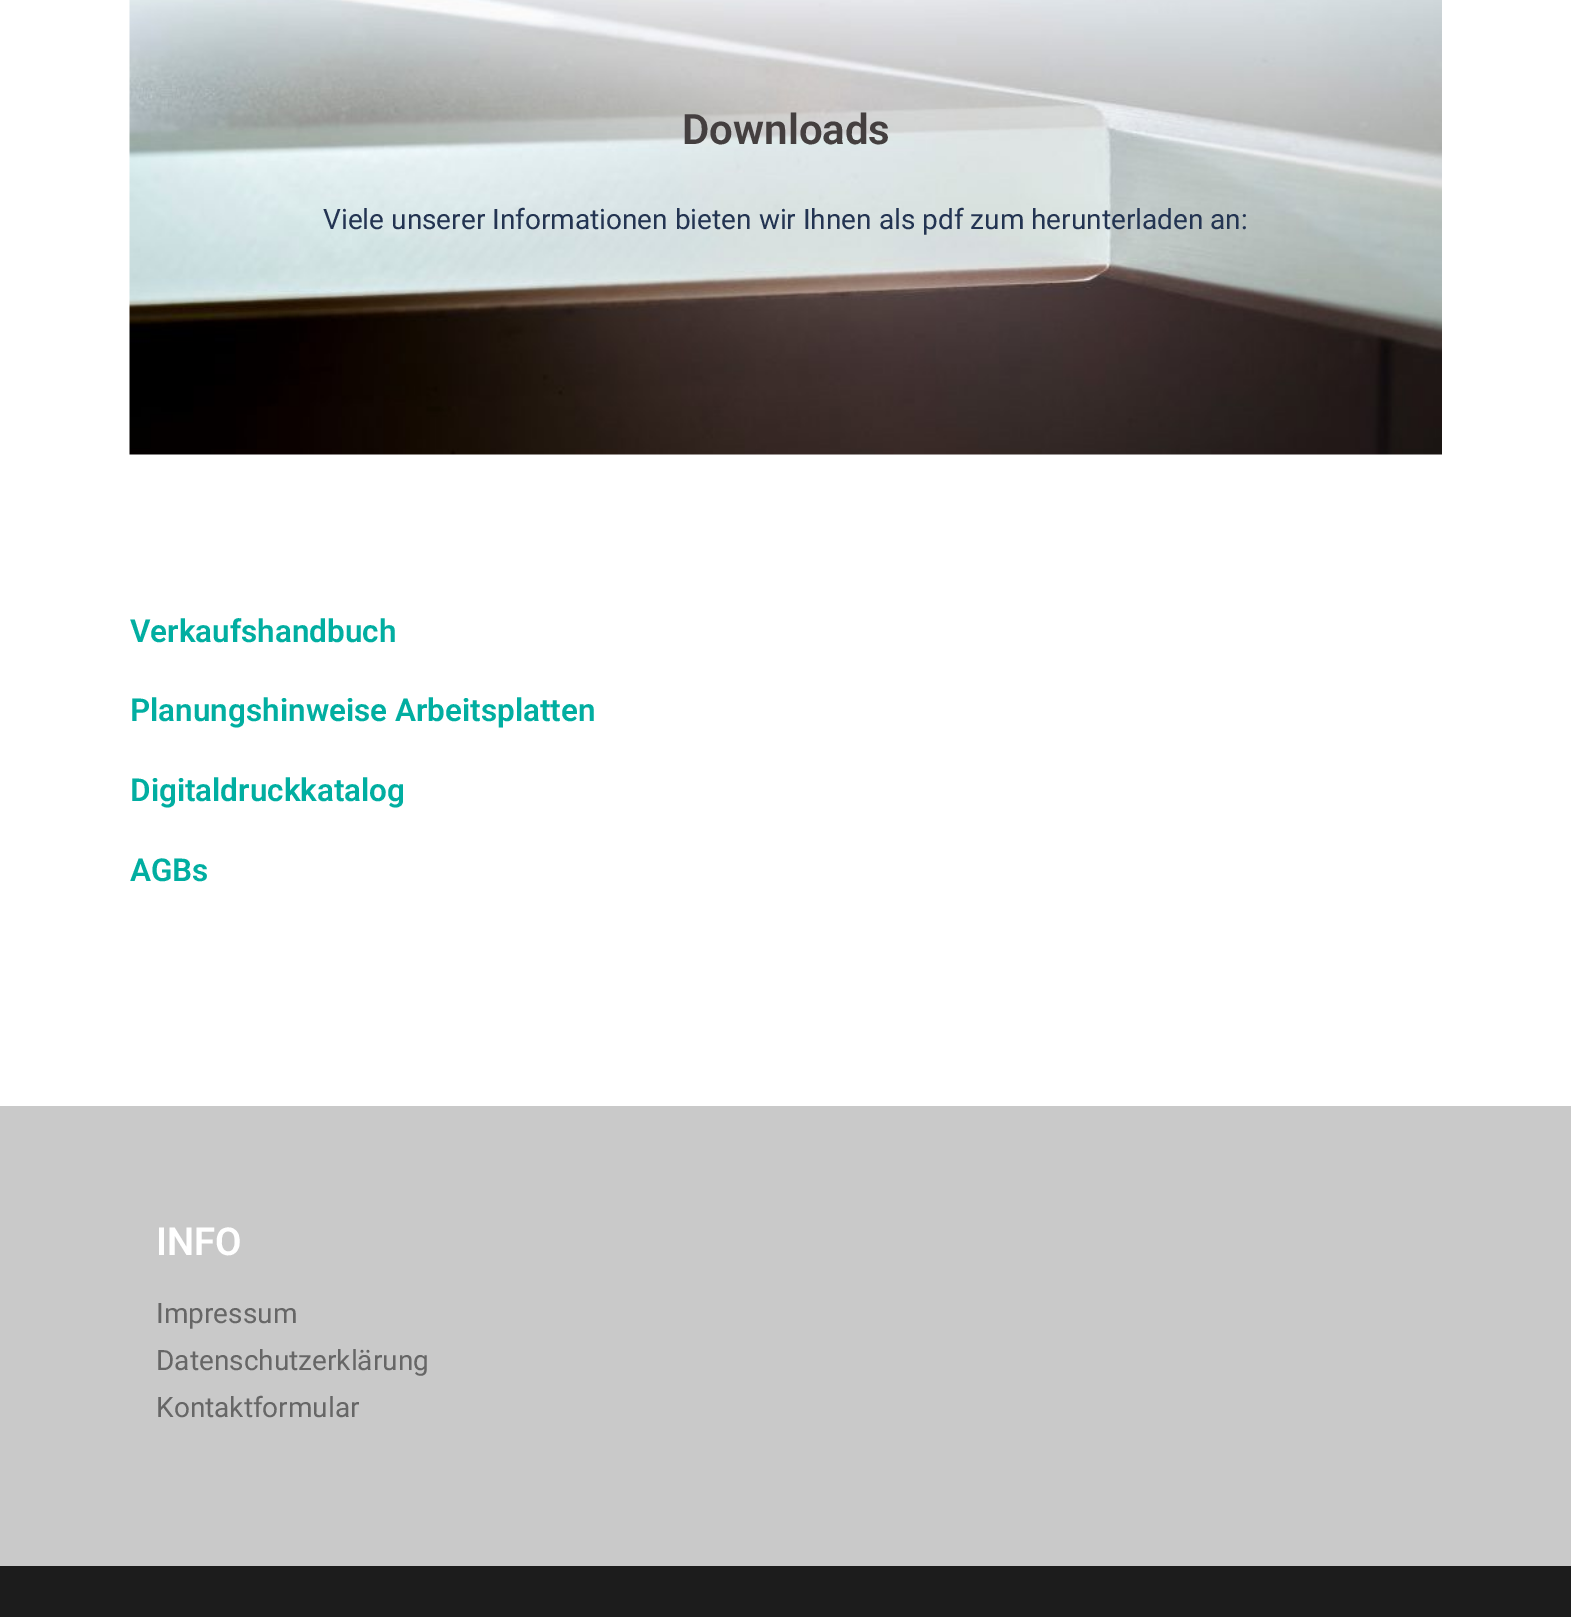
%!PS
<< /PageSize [1571 1617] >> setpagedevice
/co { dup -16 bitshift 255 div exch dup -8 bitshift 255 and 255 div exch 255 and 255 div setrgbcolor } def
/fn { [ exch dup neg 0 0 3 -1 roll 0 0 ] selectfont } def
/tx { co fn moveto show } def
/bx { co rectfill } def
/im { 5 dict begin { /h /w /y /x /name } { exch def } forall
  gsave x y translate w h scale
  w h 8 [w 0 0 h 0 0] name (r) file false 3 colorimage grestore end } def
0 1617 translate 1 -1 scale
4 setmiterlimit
0 0 1571 1617 16#FFFFFF bx
(media/1.raw) 129 0 1313 455 im
0 1106 1571 460 16#C9C9C9 bx
0 1566 1571 51 16#1C1C1C bx
(Downloads) 682 144 /Roboto-SemiBold 42 16#443F3F tx
(Viele unserer Informationen bieten wir Ihnen als pdf zum herunterladen an:) 323 229 /Roboto-Regular 28 16#233452 tx
(Verkaufshandbuch) 130 642 /Roboto-SemiBold 31.5 16#01AEA1 tx
(Planungshinweise Arbeitsplatten) 130 721 /Roboto-SemiBold 31.5 16#01AEA1 tx
(Digitaldruckkatalog) 130 801 /Roboto-SemiBold 31.5 16#01AEA1 tx
(AGBs) 130 881 /Roboto-SemiBold 31.5 16#01AEA1 tx
(INFO) 156 1255 /Roboto-SemiBold 38.5 16#FFFFFF tx
(Impressum) 156 1323 /Roboto-Regular 28 16#666666 tx
(Datenschutzerklärung) 156 1370 /Roboto-Regular 28 16#666666 tx
(Kontaktformular) 156 1417 /Roboto-Regular 28 16#666666 tx
showpage
